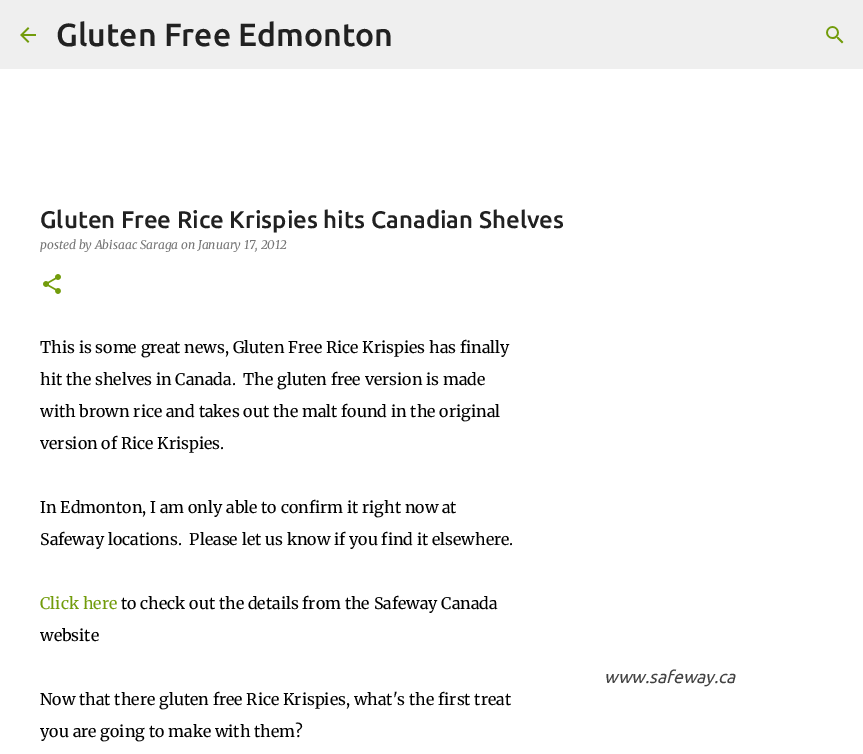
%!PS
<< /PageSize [863 754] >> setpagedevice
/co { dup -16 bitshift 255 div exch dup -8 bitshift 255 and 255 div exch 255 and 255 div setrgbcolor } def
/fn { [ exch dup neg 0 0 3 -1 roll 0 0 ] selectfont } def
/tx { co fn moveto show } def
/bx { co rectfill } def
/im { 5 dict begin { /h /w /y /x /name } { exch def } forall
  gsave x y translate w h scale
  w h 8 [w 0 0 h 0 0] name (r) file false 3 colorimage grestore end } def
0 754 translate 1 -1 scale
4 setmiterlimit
0 0 863 754 16#FFFFFF bx
0 0 863 69 16#EFEFEF bx
(media/1.raw) 20 27 16 16 im
(media/2.raw) 826 26 18 18 im
(media/3.raw) 43 274 18 20 im
(Gluten Free Edmonton) 56 46 /Ubuntu-Medium 32 16#212121 tx
(Gluten Free Rice Krispies hits Canadian Shelves) 40 228 /Ubuntu-Medium 24 16#212121 tx
(posted by Abisaac Saraga on January 17, 2012) 40 249 /Merriweather-Italic 12 16#757575 tx
(This is some great news, Gluten Free Rice Krispies has finally) 40 353 /Merriweather-Light 16 16#000000 tx
(hit the shelves in Canada.  The gluten free version is made) 40 385 /Merriweather-Light 16 16#000000 tx
(with brown rice and takes out the malt found in the original) 40 417 /Merriweather-Light 16 16#000000 tx
(version of Rice Krispies.) 40 449 /Merriweather-Light 16 16#000000 tx
(In Edmonton, I am only able to confirm it right now at) 40 513 /Merriweather-Light 16 16#000000 tx
(Safeway locations.  Please let us know if you find it elsewhere.) 40 545 /Merriweather-Light 16 16#000000 tx
(Click here) 40 609 /Merriweather-Light 16 16#729C0B tx
(to check out the details from the Safeway Canada) 121 609 /Merriweather-Light 16 16#000000 tx
(website) 40 641 /Merriweather-Light 16 16#000000 tx
(www.safeway.ca) 604 683 /Ubuntu-Italic 17.5 16#424242 tx
(Now that there gluten free Rice Krispies, what's the first treat) 40 705 /Merriweather-Light 16 16#000000 tx
(you are going to make with them?) 40 737 /Merriweather-Light 16 16#000000 tx
showpage
